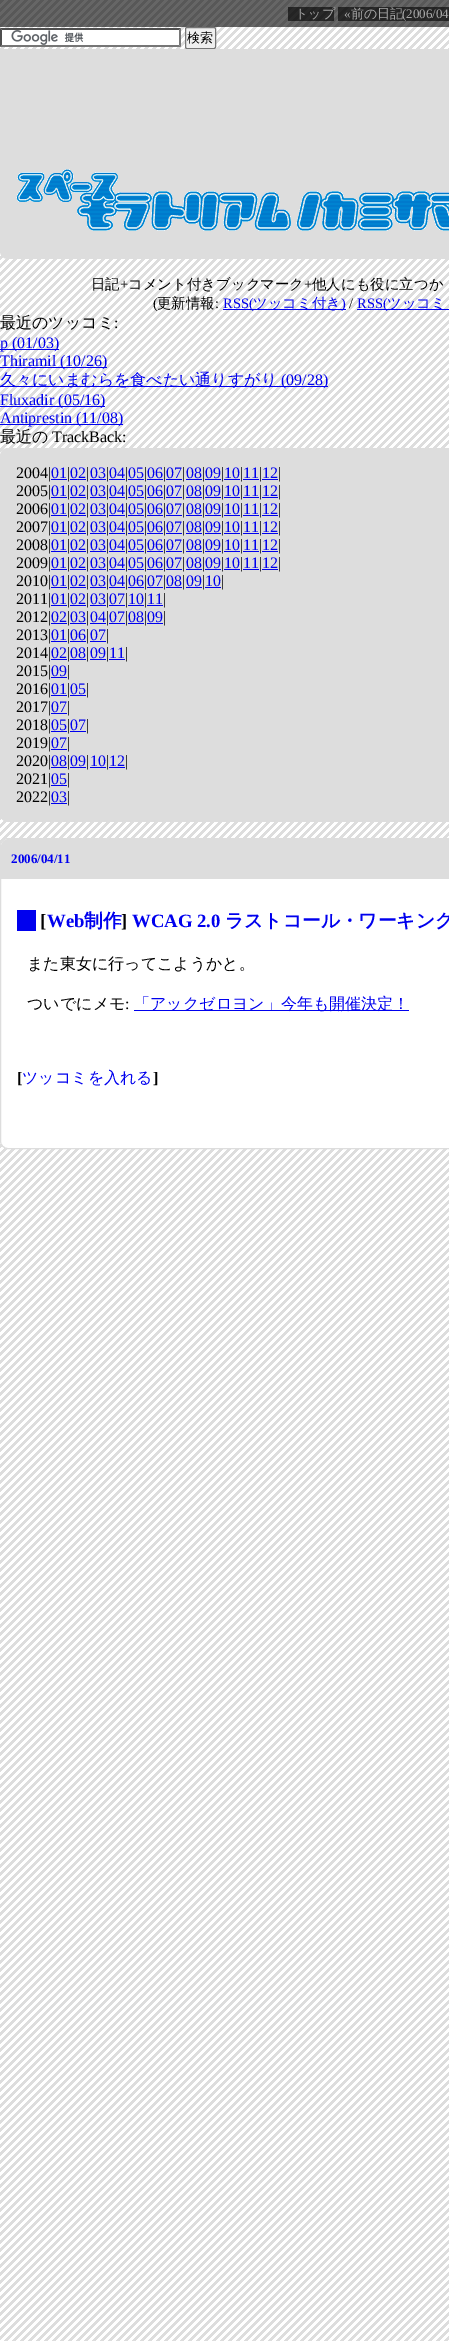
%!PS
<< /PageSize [449 2341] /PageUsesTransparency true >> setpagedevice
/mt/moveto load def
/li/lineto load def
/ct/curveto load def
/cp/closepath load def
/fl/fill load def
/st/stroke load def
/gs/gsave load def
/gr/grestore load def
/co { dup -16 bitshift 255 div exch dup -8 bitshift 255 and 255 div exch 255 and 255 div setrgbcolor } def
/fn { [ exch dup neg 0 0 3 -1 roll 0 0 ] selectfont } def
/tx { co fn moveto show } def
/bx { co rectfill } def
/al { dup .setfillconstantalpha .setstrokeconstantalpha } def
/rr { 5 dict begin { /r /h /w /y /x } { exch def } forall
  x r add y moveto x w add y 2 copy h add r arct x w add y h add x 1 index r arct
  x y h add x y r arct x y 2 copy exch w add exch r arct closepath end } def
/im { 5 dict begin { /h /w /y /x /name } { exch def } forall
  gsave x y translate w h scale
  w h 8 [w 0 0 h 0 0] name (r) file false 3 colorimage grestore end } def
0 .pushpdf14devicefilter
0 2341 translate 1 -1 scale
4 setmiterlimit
0 0 449 2341 16#FFFFFF bx
(media/1.raw) 0 0 449 2341 im
0.6 al
0 0 449 27 16#000000 bx
288 7 46 14 16#000000 bx
338 7 111 14 16#000000 bx
1 al
0 28 181 19 16#FFFFFF bx
(media/2.raw) 11 30 73 15 im
16#4F4F4F co
0 28 mt 181 28 li 179 30 li 2 30 li cp fl
16#767676 co
181 28 mt 181 47 li 179 45 li 179 30 li cp fl
181 47 mt 0 47 li 2 45 li 179 45 li cp fl
16#4F4F4F co
0 47 mt 0 28 li 2 30 li 2 45 li cp fl
16#EFEFEF co
185.5 27.5 30 21 1.5 rr gs fl gr
16#767676 co
st
16#DDDDDD co
0 49 mt 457 49 li 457 251 li 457 255.5 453.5 259 449 259 ct 8 259 li 3.5 259 0 255.5 0 251 ct cp fl
(media/3.raw) 16 169 433 62 im
223 309 123 1 16#0000EE bx
357 309 92 1 16#0000EE bx
0 349 59 1 16#0000EE bx
0 367 107 1 16#0000EE bx
0 386 328 1 16#0000EE bx
0 406 105 1 16#0000EE bx
0 424 123 1 16#0000EE bx
16#DDDDDD co
0 448 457 374 8 rr fl
51 479 16 1 16#0000EE bx
70 479 16 1 16#0000EE bx
90 479 16 1 16#0000EE bx
109 479 16 1 16#0000EE bx
128 479 16 1 16#0000EE bx
147 479 16 1 16#0000EE bx
166 479 16 1 16#0000EE bx
186 479 16 1 16#0000EE bx
205 479 16 1 16#0000EE bx
224 479 16 1 16#0000EE bx
243 479 16 1 16#0000EE bx
262 479 16 1 16#0000EE bx
51 497 16 1 16#0000EE bx
70 497 16 1 16#0000EE bx
90 497 16 1 16#0000EE bx
109 497 16 1 16#0000EE bx
128 497 16 1 16#0000EE bx
147 497 16 1 16#0000EE bx
166 497 16 1 16#0000EE bx
186 497 16 1 16#0000EE bx
205 497 16 1 16#0000EE bx
224 497 16 1 16#0000EE bx
243 497 16 1 16#0000EE bx
262 497 16 1 16#0000EE bx
51 515 16 1 16#0000EE bx
70 515 16 1 16#0000EE bx
90 515 16 1 16#0000EE bx
109 515 16 1 16#0000EE bx
128 515 16 1 16#0000EE bx
147 515 16 1 16#0000EE bx
166 515 16 1 16#0000EE bx
186 515 16 1 16#0000EE bx
205 515 16 1 16#0000EE bx
224 515 16 1 16#0000EE bx
243 515 16 1 16#0000EE bx
262 515 16 1 16#0000EE bx
51 533 16 1 16#0000EE bx
70 533 16 1 16#0000EE bx
90 533 16 1 16#0000EE bx
109 533 16 1 16#0000EE bx
128 533 16 1 16#0000EE bx
147 533 16 1 16#0000EE bx
166 533 16 1 16#0000EE bx
186 533 16 1 16#0000EE bx
205 533 16 1 16#0000EE bx
224 533 16 1 16#0000EE bx
243 533 16 1 16#0000EE bx
262 533 16 1 16#0000EE bx
51 551 16 1 16#0000EE bx
70 551 16 1 16#0000EE bx
90 551 16 1 16#0000EE bx
109 551 16 1 16#0000EE bx
128 551 16 1 16#0000EE bx
147 551 16 1 16#0000EE bx
166 551 16 1 16#0000EE bx
186 551 16 1 16#0000EE bx
205 551 16 1 16#0000EE bx
224 551 16 1 16#0000EE bx
243 551 16 1 16#0000EE bx
262 551 16 1 16#0000EE bx
51 569 16 1 16#0000EE bx
70 569 16 1 16#0000EE bx
90 569 16 1 16#0000EE bx
109 569 16 1 16#0000EE bx
128 569 16 1 16#0000EE bx
147 569 16 1 16#0000EE bx
166 569 16 1 16#0000EE bx
186 569 16 1 16#0000EE bx
205 569 16 1 16#0000EE bx
224 569 16 1 16#0000EE bx
243 569 16 1 16#0000EE bx
262 569 16 1 16#0000EE bx
51 587 16 1 16#0000EE bx
70 587 16 1 16#0000EE bx
90 587 16 1 16#0000EE bx
109 587 16 1 16#0000EE bx
128 587 16 1 16#0000EE bx
147 587 16 1 16#0000EE bx
166 587 16 1 16#0000EE bx
186 587 16 1 16#0000EE bx
205 587 16 1 16#0000EE bx
51 605 16 1 16#0000EE bx
70 605 16 1 16#0000EE bx
90 605 16 1 16#0000EE bx
109 605 16 1 16#0000EE bx
128 605 16 1 16#0000EE bx
147 605 16 1 16#0000EE bx
51 623 16 1 16#0000EE bx
70 623 16 1 16#0000EE bx
90 623 16 1 16#0000EE bx
109 623 16 1 16#0000EE bx
128 623 16 1 16#0000EE bx
147 623 16 1 16#0000EE bx
51 641 16 1 16#0000EE bx
70 641 16 1 16#0000EE bx
90 641 16 1 16#0000EE bx
51 659 16 1 16#0000EE bx
70 659 16 1 16#0000EE bx
90 659 16 1 16#0000EE bx
109 659 16 1 16#0000EE bx
51 677 16 1 16#0000EE bx
51 695 16 1 16#0000EE bx
70 695 16 1 16#0000EE bx
51 713 16 1 16#0000EE bx
51 731 16 1 16#0000EE bx
70 731 16 1 16#0000EE bx
51 749 16 1 16#0000EE bx
51 767 16 1 16#0000EE bx
70 767 16 1 16#0000EE bx
90 767 16 1 16#0000EE bx
109 767 16 1 16#0000EE bx
51 785 16 1 16#0000EE bx
51 803 16 1 16#0000EE bx
16#FFFFFF co
.5 838.5 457 310 7.5 rr gs fl gr
16#DDDDDD co
st
9 839 mt 449 839 li 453.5 839 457 842.5 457 847 ct 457 879 li 1 879 li 1 847 li 1 842.5 4.5 839 9 839 ct cp fl
17 910 19 21 16#0000EE bx
134 1010 275 1 16#0000EE bx
(トップ) 295 18 /WenQuanYiZenHei-Medium 13 16#A8A8A8 tx
(«) 344 18 /LiberationSerif-Regular 13 16#A8A8A8 tx
(前の日記) 351 18 /WenQuanYiZenHei-Medium 13 16#A8A8A8 tx
(\(2006/04) 402 18 /LiberationSerif-Regular 13 16#A8A8A8 tx
(検索) 187 42 /WenQuanYiZenHei-Medium 13 16#000000 tx
(日記) 91 289 /WenQuanYiZenHei-Medium 14.4 16#000000 tx
(+) 120 289 /LiberationSerif-Regular 14.4 16#000000 tx
(コメント付きブックマーク) 128 289 /WenQuanYiZenHei-Medium 14.4 16#000000 tx
(+) 304 289 /LiberationSerif-Regular 14.4 16#000000 tx
(他人にも役に立つか) 312 289 /WenQuanYiZenHei-Medium 14.4 16#000000 tx
(\() 153 308 /LiberationSerif-Regular 14.4 16#000000 tx
(更新情報) 157 308 /WenQuanYiZenHei-Medium 14.4 16#000000 tx
(:) 215 308 /LiberationSerif-Regular 14.4 16#000000 tx
(RSS\() 223 308 /LiberationSerif-Regular 14.4 16#0000EE tx
(ツッコミ付き) 253 308 /WenQuanYiZenHei-Medium 14.4 16#0000EE tx
(\)) 341 308 /LiberationSerif-Regular 14.4 16#0000EE tx
(/) 349 308 /LiberationSerif-Regular 14.4 16#000000 tx
(RSS\() 357 308 /LiberationSerif-Regular 14.4 16#0000EE tx
(ツッコミ) 387 308 /WenQuanYiZenHei-Medium 14.4 16#0000EE tx
(最近のツッコミ) 0 328 /WenQuanYiZenHei-Medium 16 16#000000 tx
(:) 114 328 /LiberationSerif-Regular 16 16#000000 tx
(p \(01/03\)) 0 348 /LiberationSerif-Regular 16 16#0000EE tx
(Thiramil \(10/26\)) 0 366 /LiberationSerif-Regular 16 16#0000EE tx
(久々にいまむらを食べたい通りすがり) 0 385 /WenQuanYiZenHei-Medium 16 16#0000EE tx
(\(09/28\)) 281 385 /LiberationSerif-Regular 16 16#0000EE tx
(Fluxadir \(05/16\)) 0 405 /LiberationSerif-Regular 16 16#0000EE tx
(Antiprestin \(11/08\)) 0 423 /LiberationSerif-Regular 16 16#0000EE tx
(最近の) 0 442 /WenQuanYiZenHei-Medium 16 16#000000 tx
(TrackBack:) 52 442 /LiberationSerif-Regular 16 16#000000 tx
(2004|) 16 478 /LiberationSerif-Regular 16 16#000000 tx
(01) 51 478 /LiberationSerif-Regular 16 16#0000EE tx
(|) 67 478 /LiberationSerif-Regular 16 16#000000 tx
(02) 70 478 /LiberationSerif-Regular 16 16#0000EE tx
(|) 86 478 /LiberationSerif-Regular 16 16#000000 tx
(03) 90 478 /LiberationSerif-Regular 16 16#0000EE tx
(|) 106 478 /LiberationSerif-Regular 16 16#000000 tx
(04) 109 478 /LiberationSerif-Regular 16 16#0000EE tx
(|) 125 478 /LiberationSerif-Regular 16 16#000000 tx
(05) 128 478 /LiberationSerif-Regular 16 16#0000EE tx
(|) 144 478 /LiberationSerif-Regular 16 16#000000 tx
(06) 147 478 /LiberationSerif-Regular 16 16#0000EE tx
(|) 163 478 /LiberationSerif-Regular 16 16#000000 tx
(07) 166 478 /LiberationSerif-Regular 16 16#0000EE tx
(|) 182 478 /LiberationSerif-Regular 16 16#000000 tx
(08) 186 478 /LiberationSerif-Regular 16 16#0000EE tx
(|) 202 478 /LiberationSerif-Regular 16 16#000000 tx
(09) 205 478 /LiberationSerif-Regular 16 16#0000EE tx
(|) 221 478 /LiberationSerif-Regular 16 16#000000 tx
(10) 224 478 /LiberationSerif-Regular 16 16#0000EE tx
(|) 240 478 /LiberationSerif-Regular 16 16#000000 tx
(11) 243 478 /LiberationSerif-Regular 16 16#0000EE tx
(|) 259 478 /LiberationSerif-Regular 16 16#000000 tx
(12) 262 478 /LiberationSerif-Regular 16 16#0000EE tx
(|) 278 478 /LiberationSerif-Regular 16 16#000000 tx
(2005|) 16 496 /LiberationSerif-Regular 16 16#000000 tx
(01) 51 496 /LiberationSerif-Regular 16 16#0000EE tx
(|) 67 496 /LiberationSerif-Regular 16 16#000000 tx
(02) 70 496 /LiberationSerif-Regular 16 16#0000EE tx
(|) 86 496 /LiberationSerif-Regular 16 16#000000 tx
(03) 90 496 /LiberationSerif-Regular 16 16#0000EE tx
(|) 106 496 /LiberationSerif-Regular 16 16#000000 tx
(04) 109 496 /LiberationSerif-Regular 16 16#0000EE tx
(|) 125 496 /LiberationSerif-Regular 16 16#000000 tx
(05) 128 496 /LiberationSerif-Regular 16 16#0000EE tx
(|) 144 496 /LiberationSerif-Regular 16 16#000000 tx
(06) 147 496 /LiberationSerif-Regular 16 16#0000EE tx
(|) 163 496 /LiberationSerif-Regular 16 16#000000 tx
(07) 166 496 /LiberationSerif-Regular 16 16#0000EE tx
(|) 182 496 /LiberationSerif-Regular 16 16#000000 tx
(08) 186 496 /LiberationSerif-Regular 16 16#0000EE tx
(|) 202 496 /LiberationSerif-Regular 16 16#000000 tx
(09) 205 496 /LiberationSerif-Regular 16 16#0000EE tx
(|) 221 496 /LiberationSerif-Regular 16 16#000000 tx
(10) 224 496 /LiberationSerif-Regular 16 16#0000EE tx
(|) 240 496 /LiberationSerif-Regular 16 16#000000 tx
(11) 243 496 /LiberationSerif-Regular 16 16#0000EE tx
(|) 259 496 /LiberationSerif-Regular 16 16#000000 tx
(12) 262 496 /LiberationSerif-Regular 16 16#0000EE tx
(|) 278 496 /LiberationSerif-Regular 16 16#000000 tx
(2006|) 16 514 /LiberationSerif-Regular 16 16#000000 tx
(01) 51 514 /LiberationSerif-Regular 16 16#0000EE tx
(|) 67 514 /LiberationSerif-Regular 16 16#000000 tx
(02) 70 514 /LiberationSerif-Regular 16 16#0000EE tx
(|) 86 514 /LiberationSerif-Regular 16 16#000000 tx
(03) 90 514 /LiberationSerif-Regular 16 16#0000EE tx
(|) 106 514 /LiberationSerif-Regular 16 16#000000 tx
(04) 109 514 /LiberationSerif-Regular 16 16#0000EE tx
(|) 125 514 /LiberationSerif-Regular 16 16#000000 tx
(05) 128 514 /LiberationSerif-Regular 16 16#0000EE tx
(|) 144 514 /LiberationSerif-Regular 16 16#000000 tx
(06) 147 514 /LiberationSerif-Regular 16 16#0000EE tx
(|) 163 514 /LiberationSerif-Regular 16 16#000000 tx
(07) 166 514 /LiberationSerif-Regular 16 16#0000EE tx
(|) 182 514 /LiberationSerif-Regular 16 16#000000 tx
(08) 186 514 /LiberationSerif-Regular 16 16#0000EE tx
(|) 202 514 /LiberationSerif-Regular 16 16#000000 tx
(09) 205 514 /LiberationSerif-Regular 16 16#0000EE tx
(|) 221 514 /LiberationSerif-Regular 16 16#000000 tx
(10) 224 514 /LiberationSerif-Regular 16 16#0000EE tx
(|) 240 514 /LiberationSerif-Regular 16 16#000000 tx
(11) 243 514 /LiberationSerif-Regular 16 16#0000EE tx
(|) 259 514 /LiberationSerif-Regular 16 16#000000 tx
(12) 262 514 /LiberationSerif-Regular 16 16#0000EE tx
(|) 278 514 /LiberationSerif-Regular 16 16#000000 tx
(2007|) 16 532 /LiberationSerif-Regular 16 16#000000 tx
(01) 51 532 /LiberationSerif-Regular 16 16#0000EE tx
(|) 67 532 /LiberationSerif-Regular 16 16#000000 tx
(02) 70 532 /LiberationSerif-Regular 16 16#0000EE tx
(|) 86 532 /LiberationSerif-Regular 16 16#000000 tx
(03) 90 532 /LiberationSerif-Regular 16 16#0000EE tx
(|) 106 532 /LiberationSerif-Regular 16 16#000000 tx
(04) 109 532 /LiberationSerif-Regular 16 16#0000EE tx
(|) 125 532 /LiberationSerif-Regular 16 16#000000 tx
(05) 128 532 /LiberationSerif-Regular 16 16#0000EE tx
(|) 144 532 /LiberationSerif-Regular 16 16#000000 tx
(06) 147 532 /LiberationSerif-Regular 16 16#0000EE tx
(|) 163 532 /LiberationSerif-Regular 16 16#000000 tx
(07) 166 532 /LiberationSerif-Regular 16 16#0000EE tx
(|) 182 532 /LiberationSerif-Regular 16 16#000000 tx
(08) 186 532 /LiberationSerif-Regular 16 16#0000EE tx
(|) 202 532 /LiberationSerif-Regular 16 16#000000 tx
(09) 205 532 /LiberationSerif-Regular 16 16#0000EE tx
(|) 221 532 /LiberationSerif-Regular 16 16#000000 tx
(10) 224 532 /LiberationSerif-Regular 16 16#0000EE tx
(|) 240 532 /LiberationSerif-Regular 16 16#000000 tx
(11) 243 532 /LiberationSerif-Regular 16 16#0000EE tx
(|) 259 532 /LiberationSerif-Regular 16 16#000000 tx
(12) 262 532 /LiberationSerif-Regular 16 16#0000EE tx
(|) 278 532 /LiberationSerif-Regular 16 16#000000 tx
(2008|) 16 550 /LiberationSerif-Regular 16 16#000000 tx
(01) 51 550 /LiberationSerif-Regular 16 16#0000EE tx
(|) 67 550 /LiberationSerif-Regular 16 16#000000 tx
(02) 70 550 /LiberationSerif-Regular 16 16#0000EE tx
(|) 86 550 /LiberationSerif-Regular 16 16#000000 tx
(03) 90 550 /LiberationSerif-Regular 16 16#0000EE tx
(|) 106 550 /LiberationSerif-Regular 16 16#000000 tx
(04) 109 550 /LiberationSerif-Regular 16 16#0000EE tx
(|) 125 550 /LiberationSerif-Regular 16 16#000000 tx
(05) 128 550 /LiberationSerif-Regular 16 16#0000EE tx
(|) 144 550 /LiberationSerif-Regular 16 16#000000 tx
(06) 147 550 /LiberationSerif-Regular 16 16#0000EE tx
(|) 163 550 /LiberationSerif-Regular 16 16#000000 tx
(07) 166 550 /LiberationSerif-Regular 16 16#0000EE tx
(|) 182 550 /LiberationSerif-Regular 16 16#000000 tx
(08) 186 550 /LiberationSerif-Regular 16 16#0000EE tx
(|) 202 550 /LiberationSerif-Regular 16 16#000000 tx
(09) 205 550 /LiberationSerif-Regular 16 16#0000EE tx
(|) 221 550 /LiberationSerif-Regular 16 16#000000 tx
(10) 224 550 /LiberationSerif-Regular 16 16#0000EE tx
(|) 240 550 /LiberationSerif-Regular 16 16#000000 tx
(11) 243 550 /LiberationSerif-Regular 16 16#0000EE tx
(|) 259 550 /LiberationSerif-Regular 16 16#000000 tx
(12) 262 550 /LiberationSerif-Regular 16 16#0000EE tx
(|) 278 550 /LiberationSerif-Regular 16 16#000000 tx
(2009|) 16 568 /LiberationSerif-Regular 16 16#000000 tx
(01) 51 568 /LiberationSerif-Regular 16 16#0000EE tx
(|) 67 568 /LiberationSerif-Regular 16 16#000000 tx
(02) 70 568 /LiberationSerif-Regular 16 16#0000EE tx
(|) 86 568 /LiberationSerif-Regular 16 16#000000 tx
(03) 90 568 /LiberationSerif-Regular 16 16#0000EE tx
(|) 106 568 /LiberationSerif-Regular 16 16#000000 tx
(04) 109 568 /LiberationSerif-Regular 16 16#0000EE tx
(|) 125 568 /LiberationSerif-Regular 16 16#000000 tx
(05) 128 568 /LiberationSerif-Regular 16 16#0000EE tx
(|) 144 568 /LiberationSerif-Regular 16 16#000000 tx
(06) 147 568 /LiberationSerif-Regular 16 16#0000EE tx
(|) 163 568 /LiberationSerif-Regular 16 16#000000 tx
(07) 166 568 /LiberationSerif-Regular 16 16#0000EE tx
(|) 182 568 /LiberationSerif-Regular 16 16#000000 tx
(08) 186 568 /LiberationSerif-Regular 16 16#0000EE tx
(|) 202 568 /LiberationSerif-Regular 16 16#000000 tx
(09) 205 568 /LiberationSerif-Regular 16 16#0000EE tx
(|) 221 568 /LiberationSerif-Regular 16 16#000000 tx
(10) 224 568 /LiberationSerif-Regular 16 16#0000EE tx
(|) 240 568 /LiberationSerif-Regular 16 16#000000 tx
(11) 243 568 /LiberationSerif-Regular 16 16#0000EE tx
(|) 259 568 /LiberationSerif-Regular 16 16#000000 tx
(12) 262 568 /LiberationSerif-Regular 16 16#0000EE tx
(|) 278 568 /LiberationSerif-Regular 16 16#000000 tx
(2010|) 16 586 /LiberationSerif-Regular 16 16#000000 tx
(01) 51 586 /LiberationSerif-Regular 16 16#0000EE tx
(|) 67 586 /LiberationSerif-Regular 16 16#000000 tx
(02) 70 586 /LiberationSerif-Regular 16 16#0000EE tx
(|) 86 586 /LiberationSerif-Regular 16 16#000000 tx
(03) 90 586 /LiberationSerif-Regular 16 16#0000EE tx
(|) 106 586 /LiberationSerif-Regular 16 16#000000 tx
(04) 109 586 /LiberationSerif-Regular 16 16#0000EE tx
(|) 125 586 /LiberationSerif-Regular 16 16#000000 tx
(06) 128 586 /LiberationSerif-Regular 16 16#0000EE tx
(|) 144 586 /LiberationSerif-Regular 16 16#000000 tx
(07) 147 586 /LiberationSerif-Regular 16 16#0000EE tx
(|) 163 586 /LiberationSerif-Regular 16 16#000000 tx
(08) 166 586 /LiberationSerif-Regular 16 16#0000EE tx
(|) 182 586 /LiberationSerif-Regular 16 16#000000 tx
(09) 186 586 /LiberationSerif-Regular 16 16#0000EE tx
(|) 202 586 /LiberationSerif-Regular 16 16#000000 tx
(10) 205 586 /LiberationSerif-Regular 16 16#0000EE tx
(|) 221 586 /LiberationSerif-Regular 16 16#000000 tx
(2011|) 16 604 /LiberationSerif-Regular 16 16#000000 tx
(01) 51 604 /LiberationSerif-Regular 16 16#0000EE tx
(|) 67 604 /LiberationSerif-Regular 16 16#000000 tx
(02) 70 604 /LiberationSerif-Regular 16 16#0000EE tx
(|) 86 604 /LiberationSerif-Regular 16 16#000000 tx
(03) 90 604 /LiberationSerif-Regular 16 16#0000EE tx
(|) 106 604 /LiberationSerif-Regular 16 16#000000 tx
(07) 109 604 /LiberationSerif-Regular 16 16#0000EE tx
(|) 125 604 /LiberationSerif-Regular 16 16#000000 tx
(10) 128 604 /LiberationSerif-Regular 16 16#0000EE tx
(|) 144 604 /LiberationSerif-Regular 16 16#000000 tx
(11) 147 604 /LiberationSerif-Regular 16 16#0000EE tx
(|) 163 604 /LiberationSerif-Regular 16 16#000000 tx
(2012|) 16 622 /LiberationSerif-Regular 16 16#000000 tx
(02) 51 622 /LiberationSerif-Regular 16 16#0000EE tx
(|) 67 622 /LiberationSerif-Regular 16 16#000000 tx
(03) 70 622 /LiberationSerif-Regular 16 16#0000EE tx
(|) 86 622 /LiberationSerif-Regular 16 16#000000 tx
(04) 90 622 /LiberationSerif-Regular 16 16#0000EE tx
(|) 106 622 /LiberationSerif-Regular 16 16#000000 tx
(07) 109 622 /LiberationSerif-Regular 16 16#0000EE tx
(|) 125 622 /LiberationSerif-Regular 16 16#000000 tx
(08) 128 622 /LiberationSerif-Regular 16 16#0000EE tx
(|) 144 622 /LiberationSerif-Regular 16 16#000000 tx
(09) 147 622 /LiberationSerif-Regular 16 16#0000EE tx
(|) 163 622 /LiberationSerif-Regular 16 16#000000 tx
(2013|) 16 640 /LiberationSerif-Regular 16 16#000000 tx
(01) 51 640 /LiberationSerif-Regular 16 16#0000EE tx
(|) 67 640 /LiberationSerif-Regular 16 16#000000 tx
(06) 70 640 /LiberationSerif-Regular 16 16#0000EE tx
(|) 86 640 /LiberationSerif-Regular 16 16#000000 tx
(07) 90 640 /LiberationSerif-Regular 16 16#0000EE tx
(|) 106 640 /LiberationSerif-Regular 16 16#000000 tx
(2014|) 16 658 /LiberationSerif-Regular 16 16#000000 tx
(02) 51 658 /LiberationSerif-Regular 16 16#0000EE tx
(|) 67 658 /LiberationSerif-Regular 16 16#000000 tx
(08) 70 658 /LiberationSerif-Regular 16 16#0000EE tx
(|) 86 658 /LiberationSerif-Regular 16 16#000000 tx
(09) 90 658 /LiberationSerif-Regular 16 16#0000EE tx
(|) 106 658 /LiberationSerif-Regular 16 16#000000 tx
(11) 109 658 /LiberationSerif-Regular 16 16#0000EE tx
(|) 125 658 /LiberationSerif-Regular 16 16#000000 tx
(2015|) 16 676 /LiberationSerif-Regular 16 16#000000 tx
(09) 51 676 /LiberationSerif-Regular 16 16#0000EE tx
(|) 67 676 /LiberationSerif-Regular 16 16#000000 tx
(2016|) 16 694 /LiberationSerif-Regular 16 16#000000 tx
(01) 51 694 /LiberationSerif-Regular 16 16#0000EE tx
(|) 67 694 /LiberationSerif-Regular 16 16#000000 tx
(05) 70 694 /LiberationSerif-Regular 16 16#0000EE tx
(|) 86 694 /LiberationSerif-Regular 16 16#000000 tx
(2017|) 16 712 /LiberationSerif-Regular 16 16#000000 tx
(07) 51 712 /LiberationSerif-Regular 16 16#0000EE tx
(|) 67 712 /LiberationSerif-Regular 16 16#000000 tx
(2018|) 16 730 /LiberationSerif-Regular 16 16#000000 tx
(05) 51 730 /LiberationSerif-Regular 16 16#0000EE tx
(|) 67 730 /LiberationSerif-Regular 16 16#000000 tx
(07) 70 730 /LiberationSerif-Regular 16 16#0000EE tx
(|) 86 730 /LiberationSerif-Regular 16 16#000000 tx
(2019|) 16 748 /LiberationSerif-Regular 16 16#000000 tx
(07) 51 748 /LiberationSerif-Regular 16 16#0000EE tx
(|) 67 748 /LiberationSerif-Regular 16 16#000000 tx
(2020|) 16 766 /LiberationSerif-Regular 16 16#000000 tx
(08) 51 766 /LiberationSerif-Regular 16 16#0000EE tx
(|) 67 766 /LiberationSerif-Regular 16 16#000000 tx
(09) 70 766 /LiberationSerif-Regular 16 16#0000EE tx
(|) 86 766 /LiberationSerif-Regular 16 16#000000 tx
(10) 90 766 /LiberationSerif-Regular 16 16#0000EE tx
(|) 106 766 /LiberationSerif-Regular 16 16#000000 tx
(12) 109 766 /LiberationSerif-Regular 16 16#0000EE tx
(|) 125 766 /LiberationSerif-Regular 16 16#000000 tx
(2021|) 16 784 /LiberationSerif-Regular 16 16#000000 tx
(05) 51 784 /LiberationSerif-Regular 16 16#0000EE tx
(|) 67 784 /LiberationSerif-Regular 16 16#000000 tx
(2022|) 16 802 /LiberationSerif-Regular 16 16#000000 tx
(03) 51 802 /LiberationSerif-Regular 16 16#0000EE tx
(|) 67 802 /LiberationSerif-Regular 16 16#000000 tx
(2006/04/11) 11 863 /LiberationSerif-Bold 13 16#0000EE tx
([) 40 927 /LiberationSerif-Bold 18.75 16#000000 tx
(Web) 47 927 /LiberationSerif-Bold 18.75 16#0000EE tx
(制作) 84 927 /WenQuanYiZenHei-Bold 18.75 16#0000EE tx
(]) 121 927 /LiberationSerif-Bold 18.75 16#000000 tx
(WCAG 2.0) 132 927 /LiberationSerif-Bold 18.75 16#0000EE tx
(ラストコール・ワーキング) 225 927 /WenQuanYiZenHei-Bold 18.75 16#0000EE tx
(また東女に行ってこようかと。) 27 969 /WenQuanYiZenHei-Medium 16 16#000000 tx
(ついでにメモ) 27 1009 /WenQuanYiZenHei-Medium 16 16#000000 tx
(:) 125 1009 /LiberationSerif-Regular 16 16#000000 tx
(「アックゼロヨン」今年も開催決定！) 134 1009 /WenQuanYiZenHei-Medium 16 16#0000EE tx
([) 17 1083 /LiberationSerif-Bold 16 16#000000 tx
(ツッコミを入れる) 22 1083 /WenQuanYiZenHei-Medium 16 16#0000EE tx
(]) 153 1083 /LiberationSerif-Bold 16 16#000000 tx
.poppdf14devicefilter showpage
